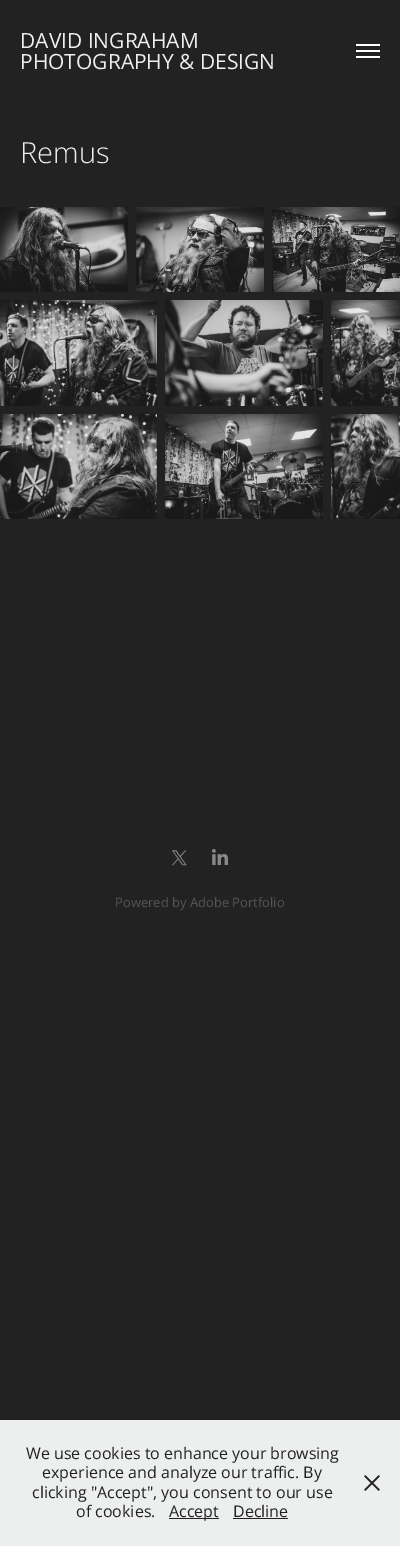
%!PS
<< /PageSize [400 1546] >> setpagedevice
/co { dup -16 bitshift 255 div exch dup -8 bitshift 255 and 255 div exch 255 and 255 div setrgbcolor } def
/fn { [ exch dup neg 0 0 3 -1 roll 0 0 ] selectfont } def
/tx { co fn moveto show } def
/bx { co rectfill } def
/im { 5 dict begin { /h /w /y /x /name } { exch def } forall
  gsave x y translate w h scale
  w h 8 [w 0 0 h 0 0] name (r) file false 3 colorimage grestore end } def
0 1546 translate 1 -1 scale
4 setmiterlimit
0 0 400 1546 16#222222 bx
356 44 24 2 16#FFFFFF bx
356 50 24 2 16#FFFFFF bx
356 56 24 2 16#FFFFFF bx
(media/1.raw) 0 207 128 85 im
(media/2.raw) 136 207 128 85 im
(media/3.raw) 272 207 128 85 im
(media/4.raw) 0 300 157 106 im
(media/5.raw) 165 300 158 106 im
(media/6.raw) 331 300 69 106 im
(media/7.raw) 0 414 157 105 im
(media/8.raw) 165 414 158 105 im
(media/9.raw) 331 414 69 105 im
(media/10.raw) 172 850 15 16 im
(media/11.raw) 212 849 16 16 im
0 1420 400 126 16#EDEEEE bx
169 1518 50 1 16#212121 bx
233 1518 55 1 16#212121 bx
(media/12.raw) 364 1475 16 16 im
(DAVID INGRAHAM) 20 48 /OpenSans-Regular 21 16#EEEEEE tx
(PHOTOGRAPHY & DESIGN) 20 69 /OpenSans-Regular 21 16#EEEEEE tx
(Remus) 20 163 /OpenSans-Light 29 16#EEEEEE tx
(Powered by Adobe Portfolio) 115 907 /OpenSans-Regular 13 16#555555 tx
(We use cookies to enhance your browsing) 26 1459 /OpenSans-Regular 16 16#212121 tx
(experience and analyze our traffic. By) 42 1478 /OpenSans-Regular 16 16#212121 tx
(clicking "Accept", you consent to our use) 32 1498 /OpenSans-Regular 16 16#212121 tx
(of cookies.) 76 1517 /OpenSans-Regular 16 16#212121 tx
(Accept) 169 1517 /OpenSans-Regular 16 16#212121 tx
(Decline) 233 1517 /OpenSans-Regular 16 16#212121 tx
showpage
